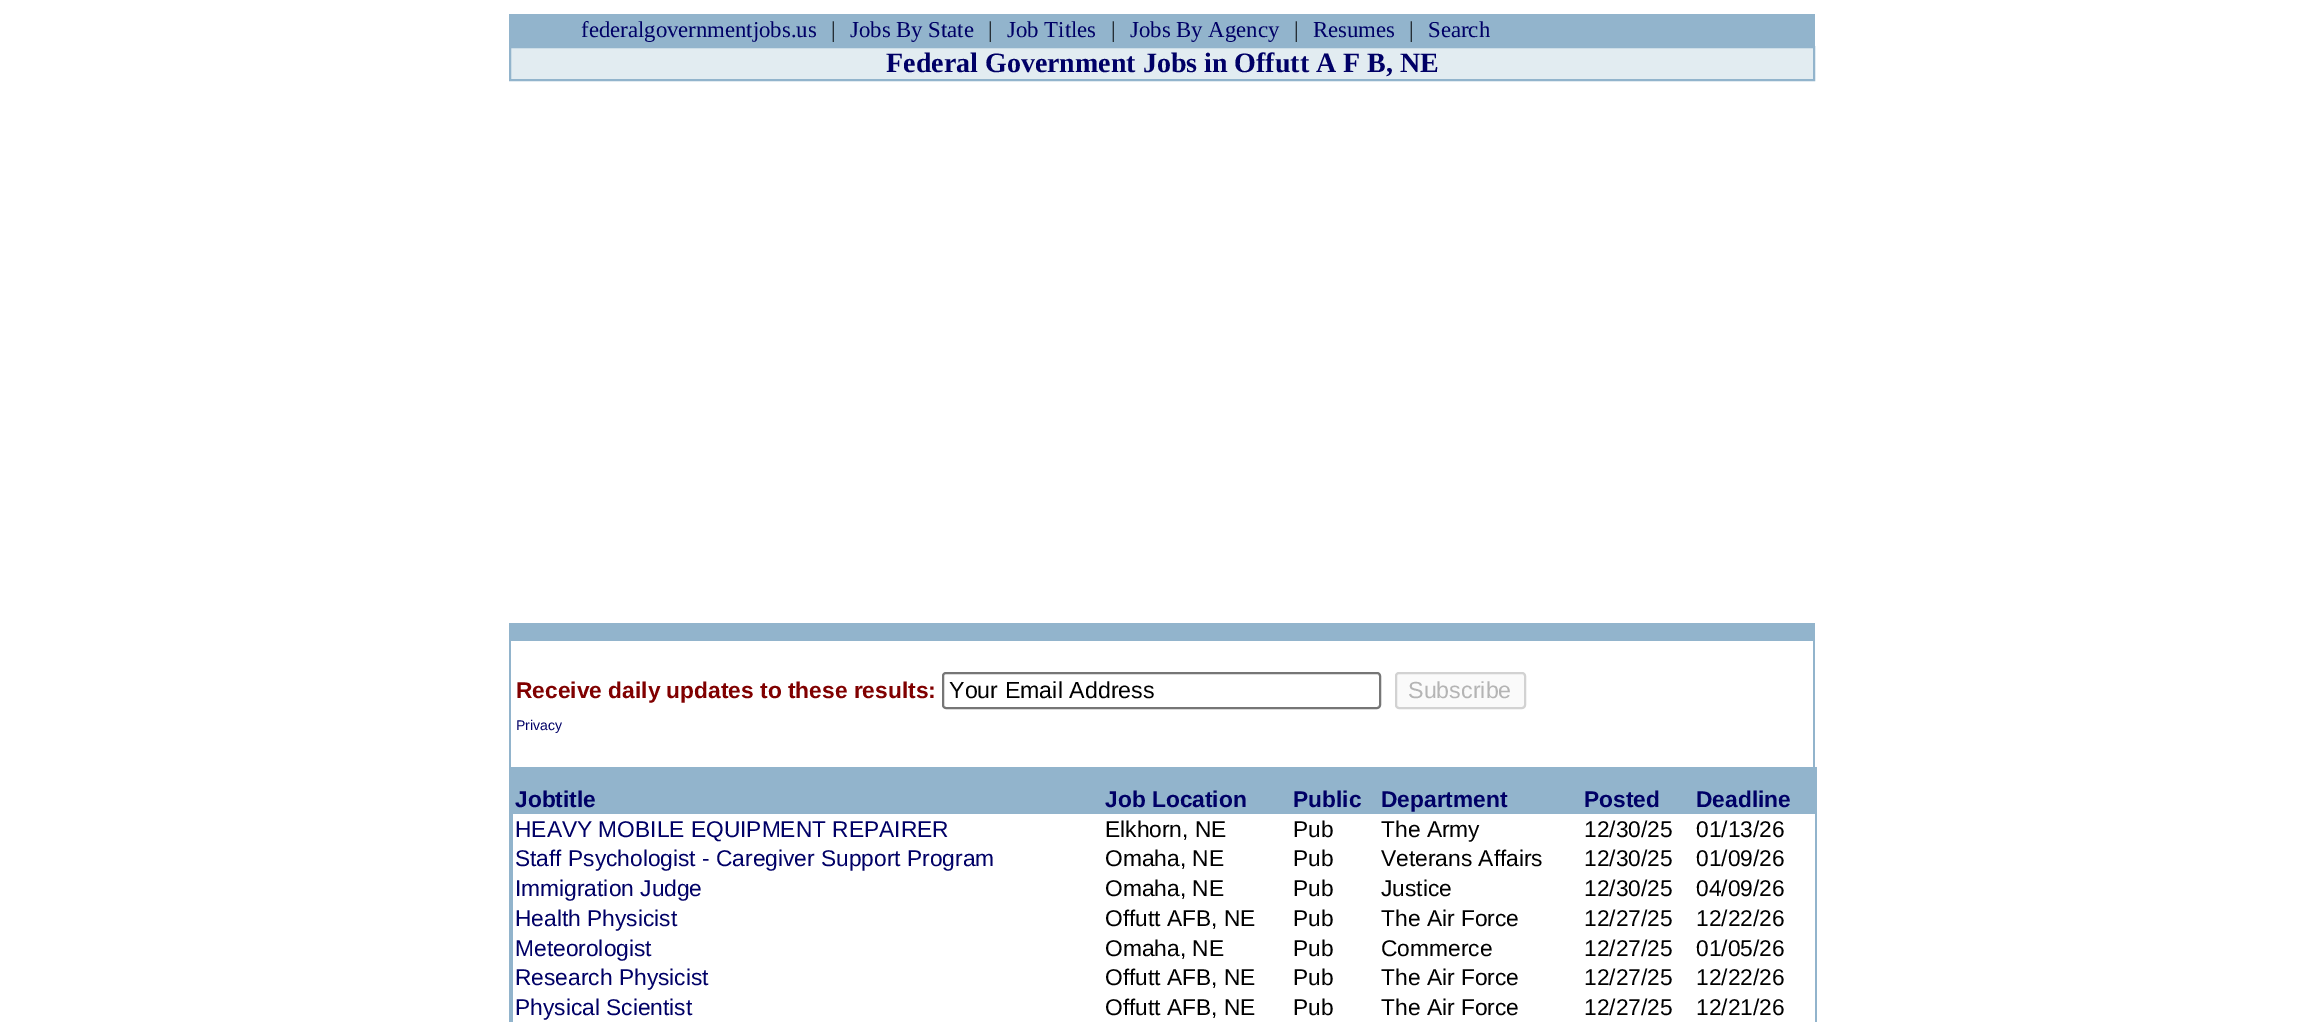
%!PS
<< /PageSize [2324 1022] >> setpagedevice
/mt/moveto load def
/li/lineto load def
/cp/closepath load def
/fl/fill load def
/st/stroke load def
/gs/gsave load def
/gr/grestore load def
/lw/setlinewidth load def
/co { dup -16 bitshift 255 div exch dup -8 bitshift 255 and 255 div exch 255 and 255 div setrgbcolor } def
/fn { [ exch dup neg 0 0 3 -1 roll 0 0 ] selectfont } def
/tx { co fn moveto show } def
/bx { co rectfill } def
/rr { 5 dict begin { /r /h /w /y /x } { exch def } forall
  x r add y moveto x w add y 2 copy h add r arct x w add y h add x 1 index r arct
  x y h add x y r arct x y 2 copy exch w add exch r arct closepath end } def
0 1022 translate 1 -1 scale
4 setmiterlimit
0 0 2324 1022 16#FFFFFF bx
509 14 1306 32 16#92B4CC bx
16#E2ECF1 co
510 47 mt 1814 47 li 1814 80 li 510 80 li cp gs fl gr
16#92B4CC co
2 lw
st
511 623 1302 18 16#92B4CC bx
1813 623 2 144 16#92B4CC bx
509 623 2 399 16#92B4CC bx
16#767676 co
943 673 437 35 3 rr st
16#FAFAFA co
1396 673 129 35 3 rr gs fl gr
16#D2D2D2 co
st
513 767 1302 17 16#92B4CC bx
1815 767 2 255 16#92B4CC bx
511 767 2 255 16#92B4CC bx
513 784 1302 30 16#92B4CC bx
(federalgovernmentjobs.us) 581 37 /LiberationSerif-Regular 22.75 16#000066 tx
(|) 831 37 /LiberationSerif-Regular 22.75 16#000000 tx
(Jobs By State) 850 37 /LiberationSerif-Regular 22.75 16#000066 tx
(|) 988 37 /LiberationSerif-Regular 22.75 16#000000 tx
(Job Titles) 1007 37 /LiberationSerif-Regular 22.75 16#000066 tx
(|) 1111 37 /LiberationSerif-Regular 22.75 16#000000 tx
(Jobs By Agency) 1130 37 /LiberationSerif-Regular 22.75 16#000066 tx
(|) 1294 37 /LiberationSerif-Regular 22.75 16#000000 tx
(Resumes) 1313 37 /LiberationSerif-Regular 22.75 16#000066 tx
(|) 1409 37 /LiberationSerif-Regular 22.75 16#000000 tx
(Search) 1428 37 /LiberationSerif-Regular 22.75 16#000066 tx
(Federal Government Jobs in Offutt A F B, NE) 886 72 /LiberationSerif-Bold 28 16#000066 tx
(Receive daily updates to these results:) 516 698 /LiberationSans-Bold 22.75 16#800000 tx
(Your Email Address) 949 698 /LiberationSans-Regular 23.25 16#000000 tx
(Subscribe) 1408 698 /LiberationSans-Regular 23.25 16#B4B4B4 tx
(Privacy) 516 730 /LiberationSans-Regular 14 16#000066 tx
(Jobtitle) 515 807 /LiberationSans-Bold 22.75 16#000066 tx
(Job Location) 1105 807 /LiberationSans-Bold 22.75 16#000066 tx
(Public) 1293 807 /LiberationSans-Bold 22.75 16#000066 tx
(Department) 1381 807 /LiberationSans-Bold 22.75 16#000066 tx
(Posted) 1584 807 /LiberationSans-Bold 22.75 16#000066 tx
(Deadline) 1696 807 /LiberationSans-Bold 22.75 16#000066 tx
(HEAVY MOBILE EQUIPMENT REPAIRER) 515 837 /LiberationSans-Regular 22.75 16#000066 tx
(Elkhorn, NE) 1105 837 /LiberationSans-Regular 22.75 16#000000 tx
(Pub) 1293 837 /LiberationSans-Regular 22.75 16#000000 tx
(The Army) 1381 837 /LiberationSans-Regular 22.75 16#000000 tx
(12/30/25) 1584 837 /LiberationSans-Regular 22.75 16#000000 tx
(01/13/26) 1696 837 /LiberationSans-Regular 22.75 16#000000 tx
(Staff Psychologist - Caregiver Support Program) 515 866 /LiberationSans-Regular 22.75 16#000066 tx
(Omaha, NE) 1105 866 /LiberationSans-Regular 22.75 16#000000 tx
(Pub) 1293 866 /LiberationSans-Regular 22.75 16#000000 tx
(Veterans Affairs) 1381 866 /LiberationSans-Regular 22.75 16#000000 tx
(12/30/25) 1584 866 /LiberationSans-Regular 22.75 16#000000 tx
(01/09/26) 1696 866 /LiberationSans-Regular 22.75 16#000000 tx
(Immigration Judge) 515 896 /LiberationSans-Regular 22.75 16#000066 tx
(Omaha, NE) 1105 896 /LiberationSans-Regular 22.75 16#000000 tx
(Pub) 1293 896 /LiberationSans-Regular 22.75 16#000000 tx
(Justice) 1381 896 /LiberationSans-Regular 22.75 16#000000 tx
(12/30/25) 1584 896 /LiberationSans-Regular 22.75 16#000000 tx
(04/09/26) 1696 896 /LiberationSans-Regular 22.75 16#000000 tx
(Health Physicist) 515 926 /LiberationSans-Regular 22.75 16#000066 tx
(Offutt AFB, NE) 1105 926 /LiberationSans-Regular 22.75 16#000000 tx
(Pub) 1293 926 /LiberationSans-Regular 22.75 16#000000 tx
(The Air Force) 1381 926 /LiberationSans-Regular 22.75 16#000000 tx
(12/27/25) 1584 926 /LiberationSans-Regular 22.75 16#000000 tx
(12/22/26) 1696 926 /LiberationSans-Regular 22.75 16#000000 tx
(Meteorologist) 515 956 /LiberationSans-Regular 22.75 16#000066 tx
(Omaha, NE) 1105 956 /LiberationSans-Regular 22.75 16#000000 tx
(Pub) 1293 956 /LiberationSans-Regular 22.75 16#000000 tx
(Commerce) 1381 956 /LiberationSans-Regular 22.75 16#000000 tx
(12/27/25) 1584 956 /LiberationSans-Regular 22.75 16#000000 tx
(01/05/26) 1696 956 /LiberationSans-Regular 22.75 16#000000 tx
(Research Physicist) 515 985 /LiberationSans-Regular 22.75 16#000066 tx
(Offutt AFB, NE) 1105 985 /LiberationSans-Regular 22.75 16#000000 tx
(Pub) 1293 985 /LiberationSans-Regular 22.75 16#000000 tx
(The Air Force) 1381 985 /LiberationSans-Regular 22.75 16#000000 tx
(12/27/25) 1584 985 /LiberationSans-Regular 22.75 16#000000 tx
(12/22/26) 1696 985 /LiberationSans-Regular 22.75 16#000000 tx
(Physical Scientist) 515 1015 /LiberationSans-Regular 22.75 16#000066 tx
(Offutt AFB, NE) 1105 1015 /LiberationSans-Regular 22.75 16#000000 tx
(Pub) 1293 1015 /LiberationSans-Regular 22.75 16#000000 tx
(The Air Force) 1381 1015 /LiberationSans-Regular 22.75 16#000000 tx
(12/27/25) 1584 1015 /LiberationSans-Regular 22.75 16#000000 tx
(12/21/26) 1696 1015 /LiberationSans-Regular 22.75 16#000000 tx
showpage
